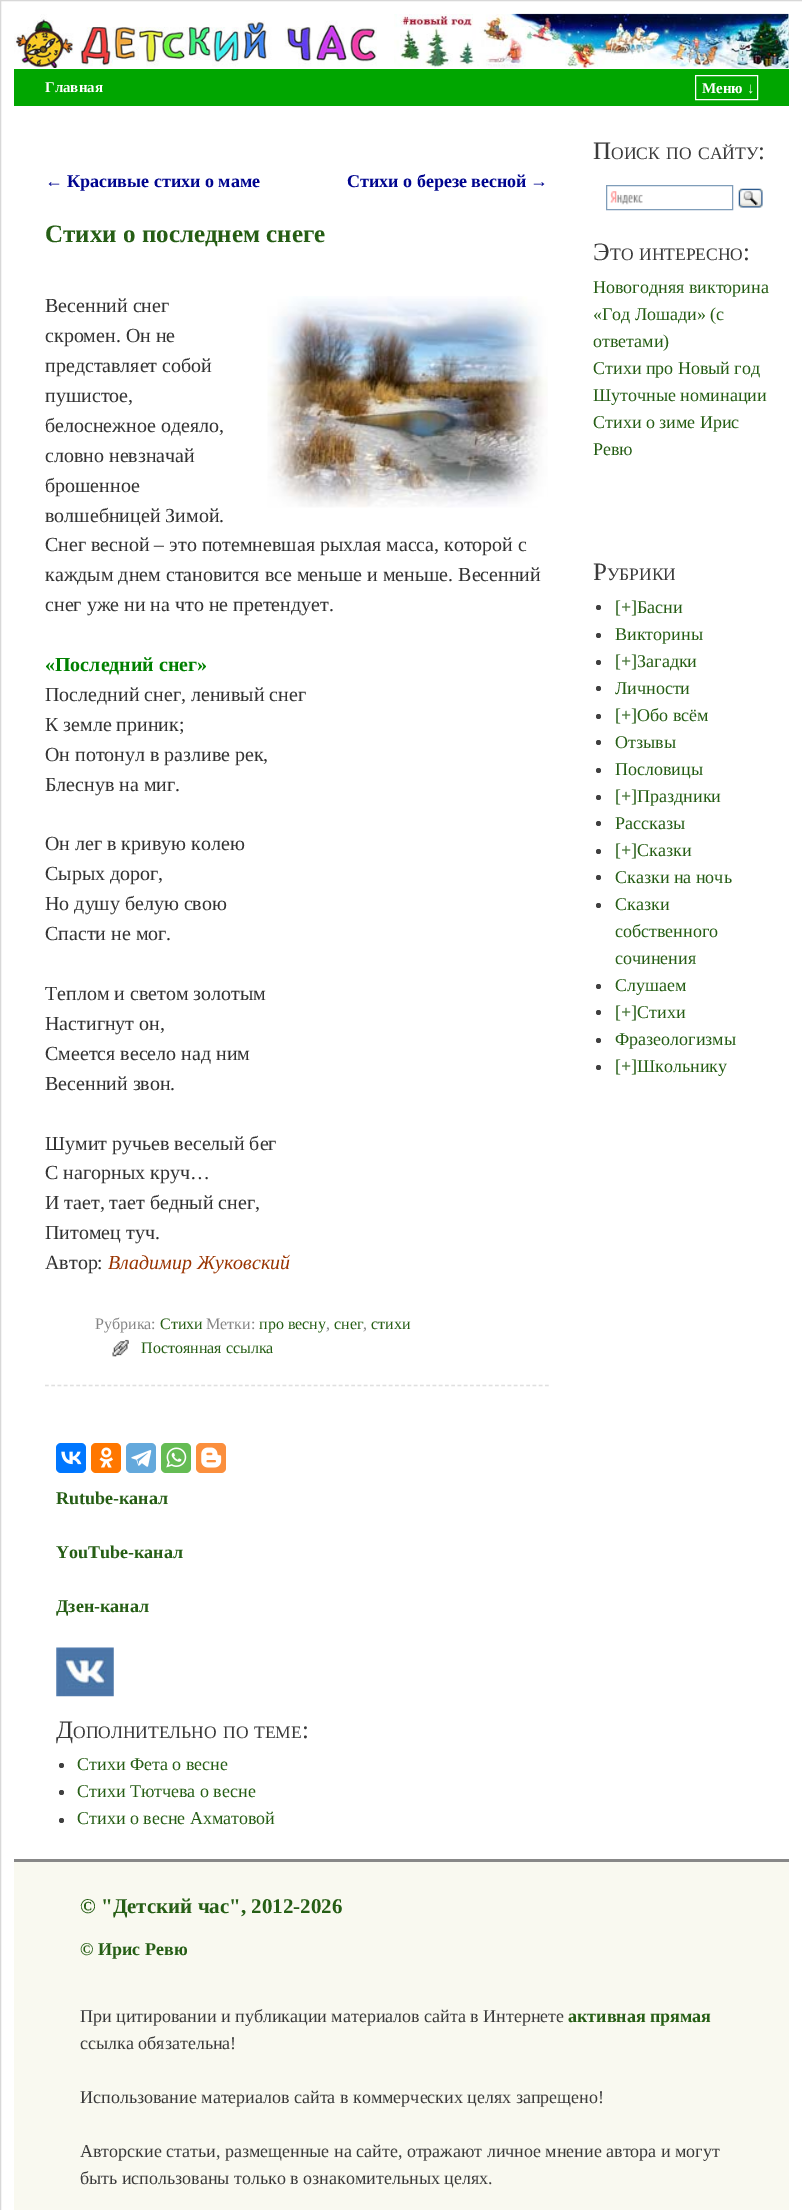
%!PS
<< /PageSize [802 2210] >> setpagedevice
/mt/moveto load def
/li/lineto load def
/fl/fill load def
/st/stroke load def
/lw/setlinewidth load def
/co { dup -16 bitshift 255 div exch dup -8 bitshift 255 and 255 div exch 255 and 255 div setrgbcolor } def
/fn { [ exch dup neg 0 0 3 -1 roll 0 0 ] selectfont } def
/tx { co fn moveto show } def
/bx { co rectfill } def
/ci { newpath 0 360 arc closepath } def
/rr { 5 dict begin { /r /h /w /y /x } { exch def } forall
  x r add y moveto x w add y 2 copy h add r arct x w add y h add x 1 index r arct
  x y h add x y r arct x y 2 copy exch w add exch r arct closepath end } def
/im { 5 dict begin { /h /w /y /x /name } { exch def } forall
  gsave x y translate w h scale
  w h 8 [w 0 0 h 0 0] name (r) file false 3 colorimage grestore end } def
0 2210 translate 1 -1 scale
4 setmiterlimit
0 0 802 2210 16#FFFFFF bx
16#D8D8D8 co
.5 .5 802 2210 rectstroke
(media/1.raw) 14 14 363 54 im
(media/2.raw) 394 13 395 56 im
14 69 775 37 16#00A600 bx
16#FFFFFF co
695.5 75.5 62 24 rectstroke
(media/3.raw) 267 296 281 212 im
16#E0E0E0 co
1.2 lw
[3.75 2.5] 0 setdash
45 1385.5 mt 549 1385.5 li st
(media/4.raw) 112 1339 17 18 im
16#0077FF co
56 1443 30 30 5 rr fl
(media/5.raw) 61 1451 21 14 im
16#FF7700 co
91 1443 30 30 5 rr fl
(media/6.raw) 99 1447 14 21 im
16#64A9DC co
126 1443 30 30 5 rr fl
(media/7.raw) 131 1450 21 17 im
16#65BC54 co
161 1443 30 30 5 rr fl
(media/8.raw) 166 1447 21 21 im
16#FB8F3D co
196 1443 30 30 5 rr fl
(media/9.raw) 201 1447 21 21 im
(media/10.raw) 56 1647 58 50 im
16#404040 co
61.5 1765.5 2.5 ci fl
61.5 1792.5 2.5 ci fl
61.5 1820.5 2.5 ci fl
(media/11.raw) 610 191 33 14 im
16#7F9DB9 co
1 lw
[] 0 setdash
606.5 185.5 126 24 rectstroke
(media/12.raw) 738 188 25 20 im
16#404040 co
598.5 607.5 2.5 ci fl
598.5 635.5 2.5 ci fl
598.5 662.5 2.5 ci fl
598.5 688.5 2.5 ci fl
598.5 716.5 2.5 ci fl
598.5 742.5 2.5 ci fl
598.5 770.5 2.5 ci fl
598.5 797.5 2.5 ci fl
598.5 823.5 2.5 ci fl
598.5 851.5 2.5 ci fl
598.5 877.5 2.5 ci fl
598.5 905.5 2.5 ci fl
598.5 986.5 2.5 ci fl
598.5 1012.5 2.5 ci fl
598.5 1040.5 2.5 ci fl
598.5 1067.5 2.5 ci fl
14 1862 775 348 16#F9F9F0 bx
14 1859 775 3 16#888888 bx
(Главная) 45 92 /LiberationSerif-Bold 15 16#FFFFFF tx
(Меню ↓) 702 93 /LiberationSerif-Bold 15 16#FFFFFF tx
(←) 45 187 /LiberationSerif-Regular 18 16#00058F tx
(Красивые стихи о маме) 67 187 /LiberationSerif-Bold 18 16#00058F tx
(Стихи о березе весной) 347 187 /LiberationSerif-Bold 18 16#00058F tx
(→) 530 187 /LiberationSerif-Regular 18 16#00058F tx
(Стихи о последнем снеге) 45 242 /LiberationSerif-Bold 25 16#265E15 tx
(Весенний снег) 45 312 /LiberationSerif-Regular 19.95 16#333333 tx
(скромен. Он не) 45 342 /LiberationSerif-Regular 19.95 16#333333 tx
(представляет собой) 45 372 /LiberationSerif-Regular 19.95 16#333333 tx
(пушистое,) 45 402 /LiberationSerif-Regular 19.95 16#333333 tx
(белоснежное одеяло,) 45 432 /LiberationSerif-Regular 19.95 16#333333 tx
(словно невзначай) 45 462 /LiberationSerif-Regular 19.95 16#333333 tx
(брошенное) 45 492 /LiberationSerif-Regular 19.95 16#333333 tx
(волшебницей Зимой.) 45 522 /LiberationSerif-Regular 19.95 16#333333 tx
(Снег весной – это потемневшая рыхлая масса, которой с) 45 551 /LiberationSerif-Regular 19.95 16#333333 tx
(каждым днем становится все меньше и меньше. Весенний) 45 581 /LiberationSerif-Regular 19.95 16#333333 tx
(снег уже ни на что не претендует.) 45 611 /LiberationSerif-Regular 19.95 16#333333 tx
(«Последний снег») 45 671 /LiberationSerif-Bold 19.95 16#008000 tx
(Последний снег, ленивый снег) 45 701 /LiberationSerif-Regular 19.95 16#333333 tx
(К земле приник;) 45 731 /LiberationSerif-Regular 19.95 16#333333 tx
(Он потонул в разливе рек,) 45 761 /LiberationSerif-Regular 19.95 16#333333 tx
(Блеснув на миг.) 45 791 /LiberationSerif-Regular 19.95 16#333333 tx
(Он лег в кривую колею) 45 850 /LiberationSerif-Regular 19.95 16#333333 tx
(Сырых дорог,) 45 880 /LiberationSerif-Regular 19.95 16#333333 tx
(Но душу белую свою) 45 910 /LiberationSerif-Regular 19.95 16#333333 tx
(Спасти не мог.) 45 940 /LiberationSerif-Regular 19.95 16#333333 tx
(Теплом и светом золотым) 45 1000 /LiberationSerif-Regular 19.95 16#333333 tx
(Настигнут он,) 45 1030 /LiberationSerif-Regular 19.95 16#333333 tx
(Смеется весело над ним) 45 1060 /LiberationSerif-Regular 19.95 16#333333 tx
(Весенний звон.) 45 1090 /LiberationSerif-Regular 19.95 16#333333 tx
(Шумит ручьев веселый бег) 45 1150 /LiberationSerif-Regular 19.95 16#333333 tx
(С нагорных круч…) 45 1179 /LiberationSerif-Regular 19.95 16#333333 tx
(И тает, тает бедный снег,) 45 1209 /LiberationSerif-Regular 19.95 16#333333 tx
(Питомец туч.) 45 1239 /LiberationSerif-Regular 19.95 16#333333 tx
(Автор:) 45 1269 /LiberationSerif-Regular 19.95 16#333333 tx
(Владимир Жуковский) 108 1269 /LiberationSerif-Italic 19.95 16#993300 tx
(Рубрика:) 95 1329 /LiberationSerif-Regular 16 16#858585 tx
(Стихи) 160 1329 /LiberationSerif-Regular 16 16#265E15 tx
(Метки:) 206 1329 /LiberationSerif-Regular 16 16#858585 tx
(про весну) 259 1329 /LiberationSerif-Regular 16 16#265E15 tx
(,) 326 1329 /LiberationSerif-Regular 16 16#858585 tx
(снег) 334 1329 /LiberationSerif-Regular 16 16#265E15 tx
(,) 363 1329 /LiberationSerif-Regular 16 16#858585 tx
(стихи) 371 1329 /LiberationSerif-Regular 16 16#265E15 tx
(Постоянная ссылка) 141 1353 /LiberationSerif-Regular 16 16#265E15 tx
(Rutube-канал) 56 1504 /LiberationSerif-Bold 18 16#265E15 tx
(YouTube-канал) 56 1558 /LiberationSerif-Bold 18 16#265E15 tx
(Дзен-канал) 56 1612 /LiberationSerif-Bold 18 16#265E15 tx
(Д) 56 1738 /LiberationSerif-Regular 25 16#3B3B3B tx
(ОПОЛНИТЕЛЬНО) 73 1738 /LiberationSerif-Regular 17.5 16#3B3B3B tx
(ПО) 223 1738 /LiberationSerif-Regular 17.5 16#3B3B3B tx
(ТЕМЕ) 254 1738 /LiberationSerif-Regular 17.5 16#3B3B3B tx
(:) 302 1738 /LiberationSerif-Regular 25 16#3B3B3B tx
(Стихи Фета о весне) 77 1770 /LiberationSerif-Regular 18 16#265E15 tx
(Стихи Тютчева о весне) 77 1797 /LiberationSerif-Regular 18 16#265E15 tx
(Стихи о весне Ахматовой) 77 1824 /LiberationSerif-Regular 18 16#265E15 tx
(П) 593 159 /LiberationSerif-Regular 25 16#3B3B3B tx
(ОИСК) 611 159 /LiberationSerif-Regular 17.5 16#3B3B3B tx
(ПО) 666 159 /LiberationSerif-Regular 17.5 16#3B3B3B tx
(САЙТУ) 698 159 /LiberationSerif-Regular 17.5 16#3B3B3B tx
(:) 758 159 /LiberationSerif-Regular 25 16#3B3B3B tx
(Э) 593 260 /LiberationSerif-Regular 25 16#3B3B3B tx
(ТО) 610 260 /LiberationSerif-Regular 17.5 16#3B3B3B tx
(ИНТЕРЕСНО) 639 260 /LiberationSerif-Regular 17.5 16#3B3B3B tx
(:) 743 260 /LiberationSerif-Regular 25 16#3B3B3B tx
(Новогодняя викторина) 593 293 /LiberationSerif-Regular 18 16#265E15 tx
(«Год Лошади» \(с) 593 320 /LiberationSerif-Regular 18 16#265E15 tx
(ответами\)) 593 347 /LiberationSerif-Regular 18 16#265E15 tx
(Стихи про Новый год) 593 374 /LiberationSerif-Regular 18 16#265E15 tx
(Шуточные номинации) 593 401 /LiberationSerif-Regular 18 16#265E15 tx
(Стихи о зиме Ирис) 593 428 /LiberationSerif-Regular 18 16#265E15 tx
(Ревю) 593 455 /LiberationSerif-Regular 18 16#265E15 tx
(Р) 593 580 /LiberationSerif-Regular 25 16#3B3B3B tx
(УБРИКИ) 607 580 /LiberationSerif-Regular 17.5 16#3B3B3B tx
([+]Басни) 615 613 /LiberationSerif-Regular 18 16#265E15 tx
(Викторины) 615 640 /LiberationSerif-Regular 18 16#265E15 tx
([+]Загадки) 615 667 /LiberationSerif-Regular 18 16#265E15 tx
(Личности) 615 694 /LiberationSerif-Regular 18 16#265E15 tx
([+]Обо всём) 615 721 /LiberationSerif-Regular 18 16#265E15 tx
(Отзывы) 615 748 /LiberationSerif-Regular 18 16#265E15 tx
(Пословицы) 615 775 /LiberationSerif-Regular 18 16#265E15 tx
([+]Праздники) 615 802 /LiberationSerif-Regular 18 16#265E15 tx
(Рассказы) 615 829 /LiberationSerif-Regular 18 16#265E15 tx
([+]Сказки) 615 856 /LiberationSerif-Regular 18 16#265E15 tx
(Сказки на ночь) 615 883 /LiberationSerif-Regular 18 16#265E15 tx
(Сказки) 615 910 /LiberationSerif-Regular 18 16#265E15 tx
(собственного) 615 937 /LiberationSerif-Regular 18 16#265E15 tx
(сочинения) 615 964 /LiberationSerif-Regular 18 16#265E15 tx
(Слушаем) 615 991 /LiberationSerif-Regular 18 16#265E15 tx
([+]Стихи) 615 1018 /LiberationSerif-Regular 18 16#265E15 tx
(Фразеологизмы) 615 1045 /LiberationSerif-Regular 18 16#265E15 tx
([+]Школьнику) 615 1072 /LiberationSerif-Regular 18 16#265E15 tx
(© "Детский час", 2012-2026) 80 1913 /LiberationSerif-Bold 21 16#265E15 tx
(© Ирис Ревю) 80 1955 /LiberationSerif-Bold 18 16#265E15 tx
(При цитировании и публикации материалов сайта в Интернете) 80 2022 /LiberationSerif-Regular 18 16#3B3B3B tx
(активная прямая) 568 2022 /LiberationSerif-Bold 18 16#265E15 tx
(ссылка обязательна!) 80 2049 /LiberationSerif-Regular 18 16#3B3B3B tx
(Использование материалов сайта в коммерческих целях запрещено!) 80 2103 /LiberationSerif-Regular 18 16#3B3B3B tx
(Авторские статьи, размещенные на сайте, отражают личное мнение автора и могут) 80 2157 /LiberationSerif-Regular 18 16#3B3B3B tx
(быть использованы только в ознакомительных целях.) 80 2184 /LiberationSerif-Regular 18 16#3B3B3B tx
showpage
